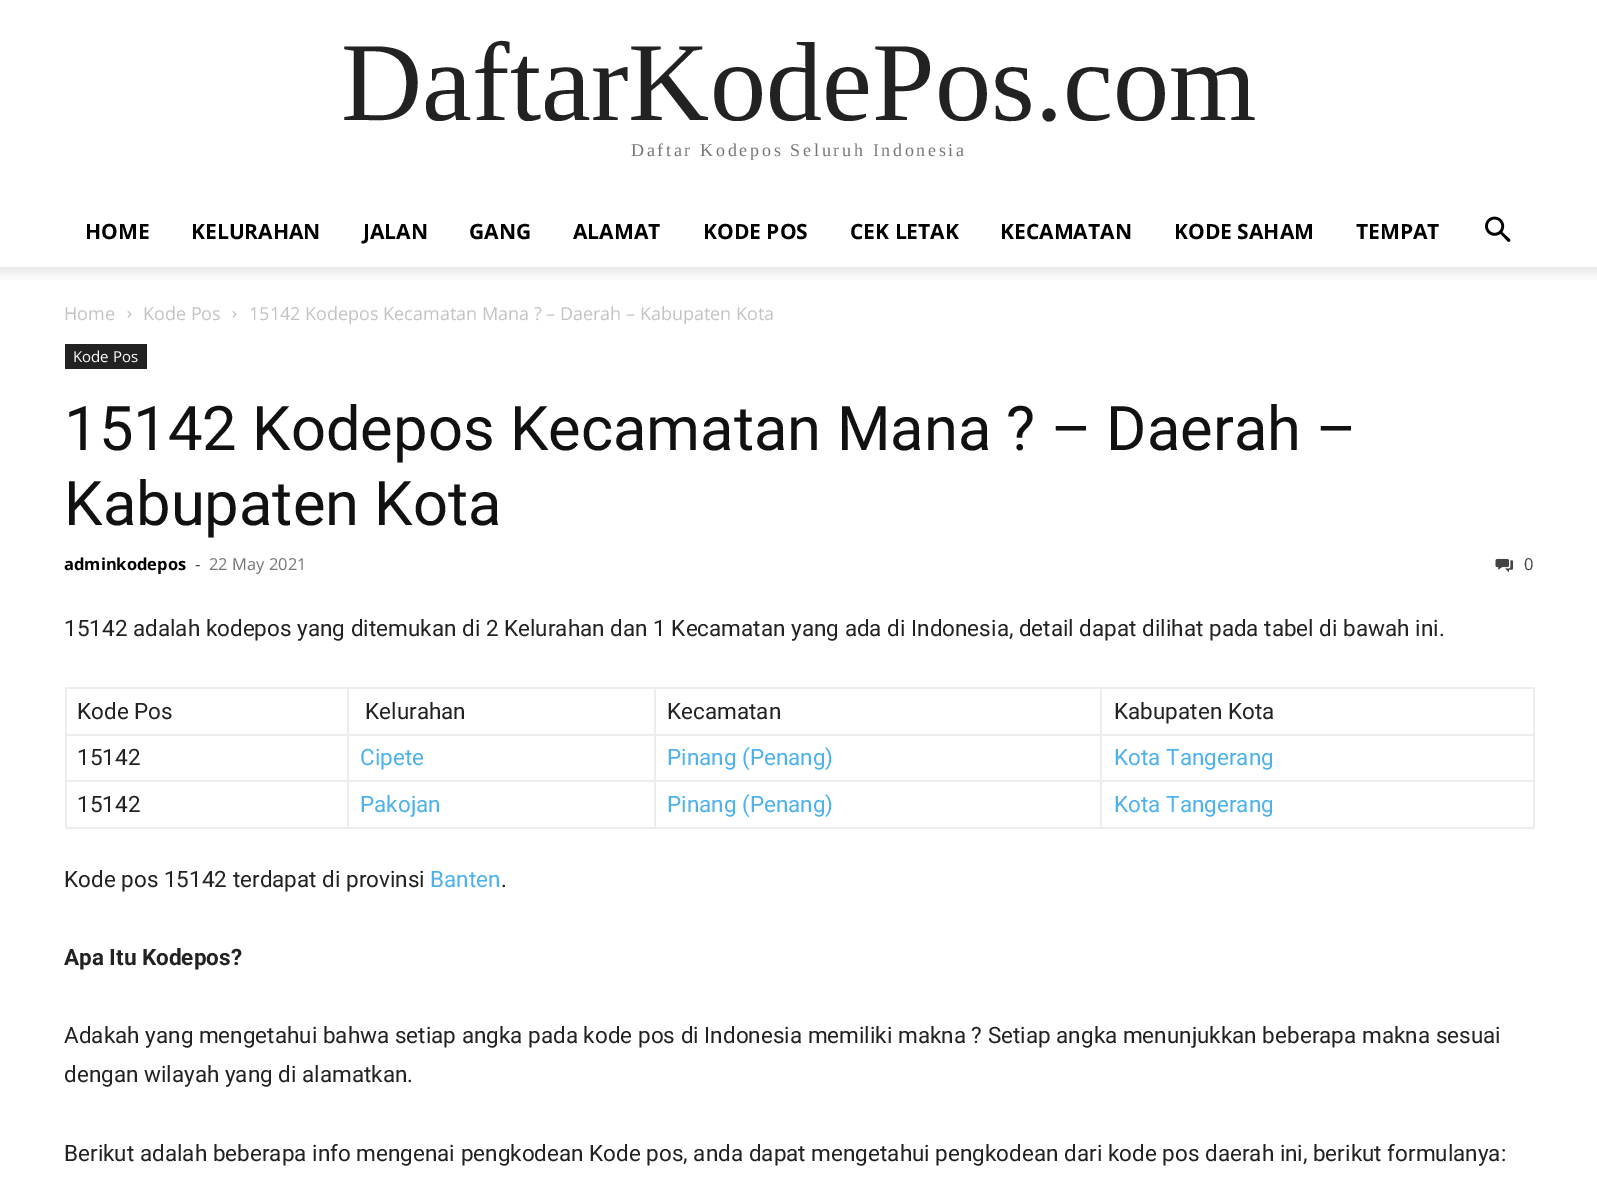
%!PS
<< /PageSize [1597 1186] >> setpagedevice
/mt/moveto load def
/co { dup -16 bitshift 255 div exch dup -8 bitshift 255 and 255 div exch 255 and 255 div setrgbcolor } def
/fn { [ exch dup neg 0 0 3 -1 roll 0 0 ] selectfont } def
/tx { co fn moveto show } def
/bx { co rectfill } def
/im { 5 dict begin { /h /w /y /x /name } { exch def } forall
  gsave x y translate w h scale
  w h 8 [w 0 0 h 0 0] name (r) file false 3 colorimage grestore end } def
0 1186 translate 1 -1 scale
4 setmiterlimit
0 0 1597 1186 16#FFFFFF bx
(media/1.raw) 1485 216 26 26 im
(media/2.raw) 0 267 1597 13 im
(media/3.raw) 127 311 5 7 im
(media/3.raw) 232 311 5 7 im
65 344 82 25 16#222222 bx
(media/4.raw) 1495 558 19 15 im
1100 687 435 2 16#EDEDED bx
1100 734 435 2 16#EDEDED bx
1100 780 435 2 16#EDEDED bx
1533 780 2 48 16#EDEDED bx
1100 827 435 2 16#EDEDED bx
1100 780 2 48 16#EDEDED bx
654 780 447 2 16#EDEDED bx
1100 734 2 48 16#EDEDED bx
654 734 447 2 16#EDEDED bx
1100 687 2 48 16#EDEDED bx
654 687 447 2 16#EDEDED bx
654 827 447 2 16#EDEDED bx
654 780 2 48 16#EDEDED bx
347 780 309 2 16#EDEDED bx
654 734 2 48 16#EDEDED bx
347 734 309 2 16#EDEDED bx
654 687 2 48 16#EDEDED bx
347 687 309 2 16#EDEDED bx
347 827 309 2 16#EDEDED bx
347 780 2 48 16#EDEDED bx
65 780 283 2 16#EDEDED bx
347 734 2 48 16#EDEDED bx
65 734 283 2 16#EDEDED bx
347 687 2 48 16#EDEDED bx
65 687 283 2 16#EDEDED bx
65 827 283 2 16#EDEDED bx
65 780 2 48 16#EDEDED bx
65 734 2 48 16#EDEDED bx
65 687 2 48 16#EDEDED bx
1533 734 2 48 16#EDEDED bx
1533 687 2 48 16#EDEDED bx
(DaftarKodePos.com) 341 120 /LiberationSerif-Regular 112.5 16#222222 tx
/LiberationSerif-Regular 18 fn
16#767676 co
631 156 mt 2.7 0 (Daftar Kodepos Seluruh Indonesia) ashow
(HOME) 85 239 /OpenSans-Bold 21 16#000000 tx
(KELURAHAN) 191 239 /OpenSans-Bold 21 16#000000 tx
(JALAN) 363 239 /OpenSans-Bold 21 16#000000 tx
(GANG) 469 239 /OpenSans-Bold 21 16#000000 tx
(ALAMAT) 573 239 /OpenSans-Bold 21 16#000000 tx
(KODE POS) 703 239 /OpenSans-Bold 21 16#000000 tx
(CEK LETAK) 850 239 /OpenSans-Bold 21 16#000000 tx
(KECAMATAN) 1000 239 /OpenSans-Bold 21 16#000000 tx
(KODE SAHAM) 1174 239 /OpenSans-Bold 21 16#000000 tx
(TEMPAT) 1356 239 /OpenSans-Bold 21 16#000000 tx
(Home) 64 320 /OpenSans-Regular 18 16#C3C3C3 tx
(Kode Pos) 143 320 /OpenSans-Regular 18 16#C3C3C3 tx
(15142 Kodepos Kecamatan Mana ? – Daerah – Kabupaten Kota) 249 320 /OpenSans-Regular 18 16#C3C3C3 tx
(Kode Pos) 73 362 /OpenSans-Regular 15 16#FFFFFF tx
(15142 Kodepos Kecamatan Mana ? – Daerah –) 64 450 /Roboto-Regular 61.5 16#111111 tx
(Kabupaten Kota) 64 525 /Roboto-Regular 61.5 16#111111 tx
(adminkodepos) 64 570 /OpenSans-Bold 16.5 16#000000 tx
(-) 195 570 /OpenSans-Regular 16.5 16#444444 tx
(22 May 2021) 209 570 /OpenSans-Regular 16.5 16#767676 tx
(0) 1524 570 /OpenSans-Regular 16.5 16#444444 tx
(15142 adalah kodepos yang ditemukan di 2 Kelurahan dan 1 Kecamatan yang ada di Indonesia, detail dapat dilihat pada tabel di bawah ini.) 64 636 /Roboto-Regular 22.5 16#222222 tx
(Kode Pos) 77 719 /Roboto-Regular 22.5 16#222222 tx
(Kelurahan) 365 719 /Roboto-Regular 22.5 16#222222 tx
(Kecamatan) 667 719 /Roboto-Regular 22.5 16#222222 tx
(Kabupaten Kota) 1114 719 /Roboto-Regular 22.5 16#222222 tx
(15142) 77 765 /Roboto-Regular 22.5 16#222222 tx
(Cipete) 360 765 /Roboto-Regular 22.5 16#4DB2EC tx
(Pinang \(Penang\)) 667 765 /Roboto-Regular 22.5 16#4DB2EC tx
(Kota Tangerang) 1114 765 /Roboto-Regular 22.5 16#4DB2EC tx
(15142) 77 812 /Roboto-Regular 22.5 16#222222 tx
(Pakojan) 360 812 /Roboto-Regular 22.5 16#4DB2EC tx
(Pinang \(Penang\)) 667 812 /Roboto-Regular 22.5 16#4DB2EC tx
(Kota Tangerang) 1114 812 /Roboto-Regular 22.5 16#4DB2EC tx
(Kode pos 15142 terdapat di provinsi) 64 887 /Roboto-Regular 22.5 16#222222 tx
(Banten) 430 887 /Roboto-Regular 22.5 16#4DB2EC tx
(.) 501 887 /Roboto-Regular 22.5 16#222222 tx
(Apa Itu Kodepos?) 64 965 /Roboto-Bold 22.5 16#222222 tx
(Adakah yang mengetahui bahwa setiap angka pada kode pos di Indonesia memiliki makna ? Setiap angka menunjukkan beberapa makna sesuai) 64 1043 /Roboto-Regular 22.5 16#222222 tx
(dengan wilayah yang di alamatkan.) 64 1082 /Roboto-Regular 22.5 16#222222 tx
(Berikut adalah beberapa info mengenai pengkodean Kode pos, anda dapat mengetahui pengkodean dari kode pos daerah ini, berikut formulanya:) 64 1161 /Roboto-Regular 22.5 16#222222 tx
showpage
